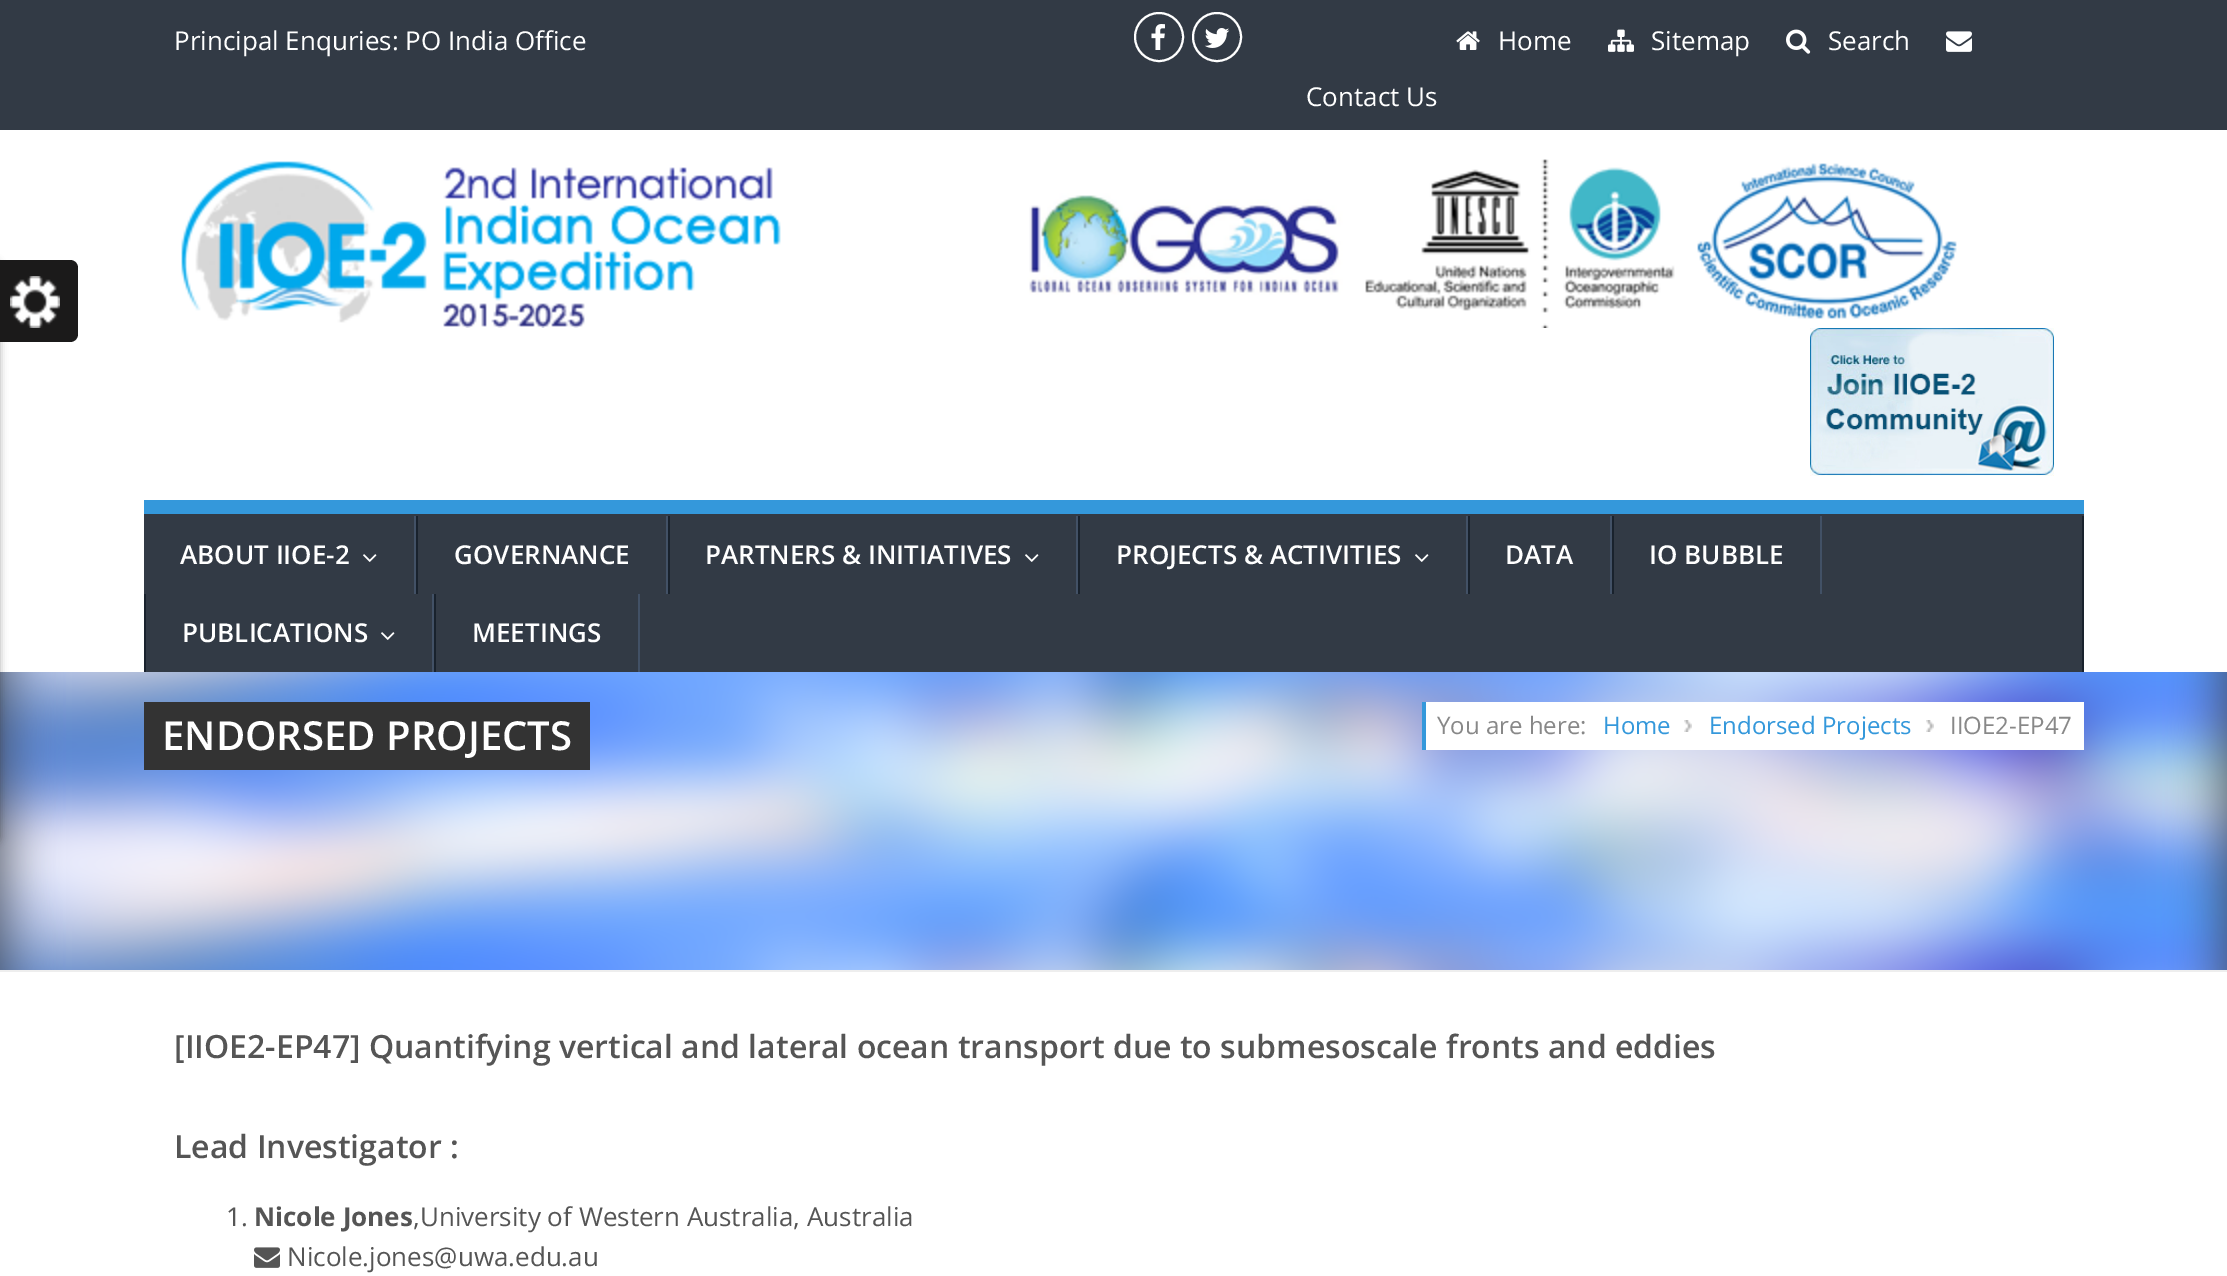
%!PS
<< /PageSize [2227 1276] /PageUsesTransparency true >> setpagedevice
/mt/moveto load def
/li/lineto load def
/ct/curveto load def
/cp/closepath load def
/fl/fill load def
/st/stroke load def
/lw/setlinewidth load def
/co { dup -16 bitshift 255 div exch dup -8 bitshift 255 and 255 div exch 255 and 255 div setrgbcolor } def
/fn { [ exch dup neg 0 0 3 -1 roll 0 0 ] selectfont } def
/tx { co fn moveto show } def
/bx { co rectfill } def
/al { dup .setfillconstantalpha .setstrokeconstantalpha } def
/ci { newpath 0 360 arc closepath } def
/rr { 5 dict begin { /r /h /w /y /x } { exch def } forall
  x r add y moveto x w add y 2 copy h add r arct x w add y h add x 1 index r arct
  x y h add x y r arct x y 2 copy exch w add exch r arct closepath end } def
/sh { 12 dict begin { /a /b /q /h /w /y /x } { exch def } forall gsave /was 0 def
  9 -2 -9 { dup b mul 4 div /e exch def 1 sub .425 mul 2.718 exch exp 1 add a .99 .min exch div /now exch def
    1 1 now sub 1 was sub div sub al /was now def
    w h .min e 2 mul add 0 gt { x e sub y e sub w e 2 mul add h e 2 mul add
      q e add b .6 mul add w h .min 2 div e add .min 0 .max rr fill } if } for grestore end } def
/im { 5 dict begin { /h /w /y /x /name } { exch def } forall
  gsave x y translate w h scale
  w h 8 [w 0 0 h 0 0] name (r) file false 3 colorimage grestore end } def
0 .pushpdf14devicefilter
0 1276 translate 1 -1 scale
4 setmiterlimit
0 0 2227 1276 16#FFFFFF bx
0 672 2227 298 16#3C434D bx
(media/11.raw) 0 672 2227 298 im
16#333333 co
-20 260 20 584 8 4 .4 sh
16#1B1A1A co
0 260 mt 70 260 li 74.5 260 78 263.5 78 268 ct 78 334 li 78 338.5 74.5 342 70 342 ct 0 342 li cp fl
(media/1.raw) 10 276 50 52 im
0 0 2227 130 16#323A45 bx
16#FFFFFF co
2 lw
1159 37 24 ci st
(media/2.raw) 1151 24 14 26 im
1217 37 24 ci st
(media/3.raw) 1204 28 26 20 im
(media/4.raw) 1456 31 24 19 im
(media/5.raw) 1608 29 26 23 im
(media/6.raw) 1786 29 25 25 im
(media/7.raw) 1946 31 26 21 im
(media/8.raw) 181 159 1776 169 im
(media/9.raw) 1810 328 244 148 im
144 514 1940 158 16#323A45 bx
144 500 1940 14 16#3498DB bx
2082 516 2 156 16#19222D bx
414 516 2 78 16#425166 bx
(media/10.raw) 363 554 14 8 im
666 516 2 78 16#425166 bx
416 516 2 78 16#19222D bx
1076 516 2 78 16#425166 bx
668 516 2 78 16#19222D bx
(media/10.raw) 1025 554 14 8 im
1466 516 2 78 16#425166 bx
1078 516 2 78 16#19222D bx
(media/10.raw) 1415 554 14 8 im
1610 516 2 78 16#425166 bx
1468 516 2 78 16#19222D bx
1820 516 2 78 16#425166 bx
1612 516 2 78 16#19222D bx
432 594 2 78 16#425166 bx
144 594 2 78 16#19222D bx
(media/10.raw) 381 632 14 8 im
638 594 2 78 16#425166 bx
434 594 2 78 16#19222D bx
0 970 2227 2 16#EEEEEE bx
144 702 446 68 16#333333 bx
1426 702 658 48 16#FFFFFF bx
1422 702 4 48 16#3498DB bx
(media/12.raw) 1684 720 8 12 im
(media/12.raw) 1926 720 8 12 im
(media/13.raw) 254 1247 26 21 im
(Principal Enquries: PO India Office) 174 50 /OpenSans-Regular 26 16#FFFFFF tx
(Home) 1498 50 /OpenSans-Regular 26 16#FFFFFF tx
(Sitemap) 1651 50 /OpenSans-Regular 26 16#FFFFFF tx
(Search) 1828 50 /OpenSans-Regular 26 16#FFFFFF tx
(Contact Us) 1306 106 /OpenSans-Regular 26 16#FFFFFF tx
(ABOUT IIOE-2) 180 564 /OpenSans-SemiBold 26 16#FFFFFF tx
(GOVERNANCE) 454 564 /OpenSans-SemiBold 26 16#FFFFFF tx
(PARTNERS & INITIATIVES) 705 564 /OpenSans-SemiBold 26 16#FFFFFF tx
(PROJECTS & ACTIVITIES) 1116 564 /OpenSans-SemiBold 26 16#FFFFFF tx
(DATA) 1505 564 /OpenSans-SemiBold 26 16#FFFFFF tx
(IO BUBBLE) 1649 564 /OpenSans-SemiBold 26 16#FFFFFF tx
(PUBLICATIONS) 182 642 /OpenSans-SemiBold 26 16#FFFFFF tx
(MEETINGS) 472 642 /OpenSans-SemiBold 26 16#FFFFFF tx
(ENDORSED PROJECTS) 162 750 /OpenSans-SemiBold 40 16#FFFFFF tx
(You are here:) 1437 734 /OpenSans-Regular 24 16#888888 tx
(Home) 1603 734 /OpenSans-Regular 24 16#3498DB tx
(Endorsed Projects) 1709 734 /OpenSans-Regular 24 16#3498DB tx
(IIOE2-EP47) 1950 734 /OpenSans-Regular 24 16#888888 tx
([IIOE2-EP47] Quantifying vertical and lateral ocean transport due to submesoscale fronts and eddies) 174 1058 /OpenSans-SemiBold 32 16#555555 tx
(Lead Investigator :) 174 1158 /OpenSans-SemiBold 32 16#555555 tx
(1.) 226 1226 /OpenSans-Regular 26 16#555555 tx
(Nicole Jones) 254 1226 /OpenSans-Bold 26 16#555555 tx
(,University of Western Australia, Australia) 413 1226 /OpenSans-Regular 26 16#555555 tx
(Nicole.jones@uwa.edu.au) 287 1266 /OpenSans-Regular 26 16#555555 tx
.poppdf14devicefilter showpage
